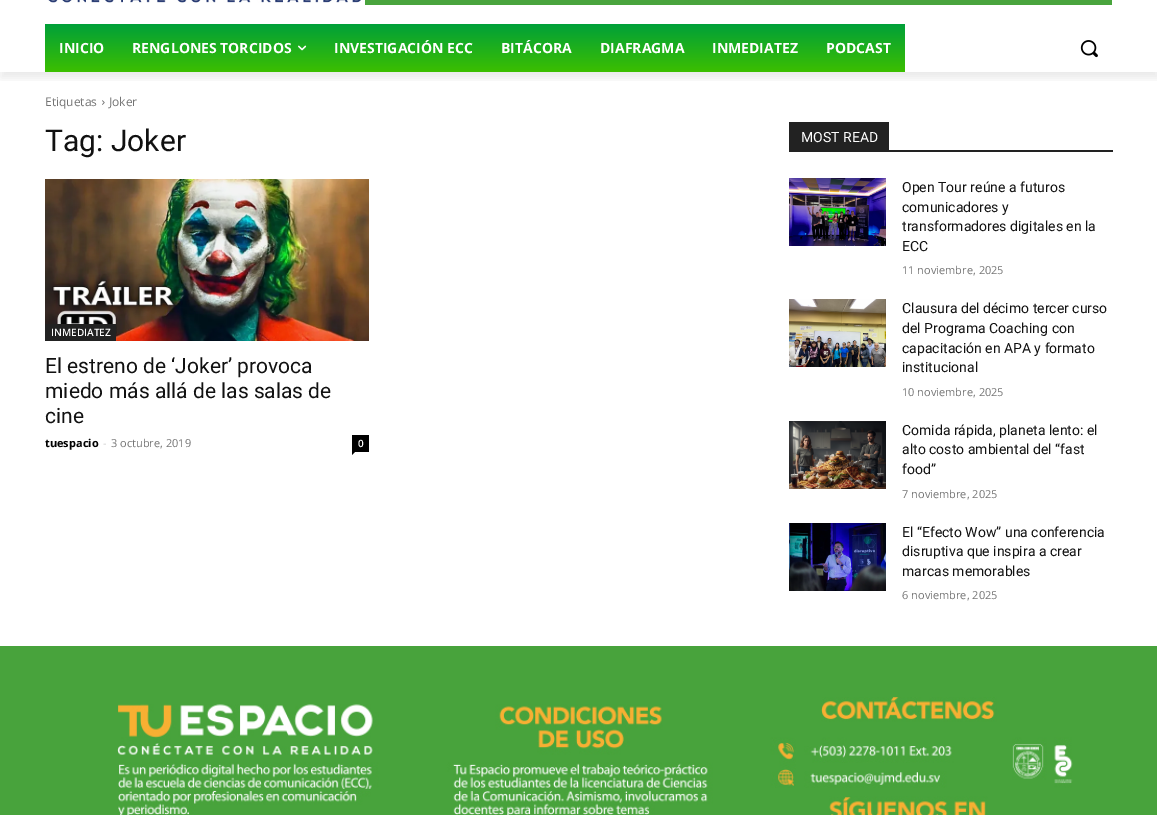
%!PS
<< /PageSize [1157 815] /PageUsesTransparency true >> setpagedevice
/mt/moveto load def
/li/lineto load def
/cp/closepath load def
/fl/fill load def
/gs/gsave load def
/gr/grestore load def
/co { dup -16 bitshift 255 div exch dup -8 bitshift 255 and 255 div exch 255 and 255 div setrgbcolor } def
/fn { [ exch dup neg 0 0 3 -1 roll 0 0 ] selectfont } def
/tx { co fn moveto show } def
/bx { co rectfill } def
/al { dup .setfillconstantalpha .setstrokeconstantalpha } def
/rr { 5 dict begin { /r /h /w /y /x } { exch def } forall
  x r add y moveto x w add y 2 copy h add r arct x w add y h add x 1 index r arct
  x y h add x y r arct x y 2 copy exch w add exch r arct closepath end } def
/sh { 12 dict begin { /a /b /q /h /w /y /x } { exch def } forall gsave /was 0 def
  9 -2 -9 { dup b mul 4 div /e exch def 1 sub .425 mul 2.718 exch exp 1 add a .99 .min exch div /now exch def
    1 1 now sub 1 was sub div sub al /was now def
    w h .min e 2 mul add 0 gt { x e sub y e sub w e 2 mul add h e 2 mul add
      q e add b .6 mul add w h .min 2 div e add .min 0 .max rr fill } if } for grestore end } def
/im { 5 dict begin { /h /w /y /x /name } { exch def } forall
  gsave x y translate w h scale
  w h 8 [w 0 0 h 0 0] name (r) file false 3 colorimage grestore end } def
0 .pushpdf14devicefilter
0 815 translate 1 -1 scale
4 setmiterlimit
0 0 1157 815 16#FFFFFF bx
(media/1.raw) 48 0 313 3 im
(media/2.raw) 365 0 747 5 im
gs
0 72 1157 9 rectclip
16#000000 co
1 -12 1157 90 0 4 .08 sh
gr
gs 45 24 mt 905 24 li 905 72 li 45 72 li cp clip newpath
<< /ShadingType 2 /ColorSpace /DeviceRGB /Coords [475 24 475 72] /Extend [true true] /Function << /FunctionType 2 /Domain [0 1] /C0 [0 .627 .224] /C1 [.235 .749 0] /N 1 >> >> shfill gr
(media/3.raw) 298 45 9 6 im
(media/4.raw) 1080 40 18 18 im
(media/5.raw) 102 100 3 5 im
(media/6.raw) 45 179 324 162 im
45 324 71 17 16#222222 bx
352 435 17 17 16#000000 bx
352 452 mt 355 452 li 352 455 li cp fl
789 150 324 2 16#222222 bx
789 122 100 28 16#222222 bx
(media/7.raw) 789 178 97 68 im
(media/8.raw) 789 299 97 68 im
(media/9.raw) 789 421 97 68 im
(media/10.raw) 789 523 97 68 im
0 646 1157 169 16#48A33C bx
(media/11.raw) 117 697 956 118 im
(INICIO) 59 53 /OpenSans-Bold 14 16#FFFFFF tx
(RENGLONES TORCIDOS) 132 53 /OpenSans-Bold 14 16#FFFFFF tx
(INVESTIGACIÓN ECC) 334 53 /OpenSans-Bold 14 16#FFFFFF tx
(BITÁCORA) 501 53 /OpenSans-Bold 14 16#FFFFFF tx
(DIAFRAGMA) 600 53 /OpenSans-Bold 14 16#FFFFFF tx
(INMEDIATEZ) 712 53 /OpenSans-Bold 14 16#FFFFFF tx
(PODCAST) 826 53 /OpenSans-Bold 14 16#FFFFFF tx
(Etiquetas) 45 106 /OpenSans-Regular 12 16#747474 tx
(Joker) 109 106 /OpenSans-Regular 12 16#747474 tx
(Tag: Joker) 45 151 /Roboto-Regular 30 16#111111 tx
(INMEDIATEZ) 51 336 /OpenSans-SemiBold 10 16#FFFFFF tx
(El estreno de ‘Joker’ provoca) 45 373 /Roboto-Regular 21 16#111111 tx
(miedo más allá de las salas de) 45 398 /Roboto-Regular 21 16#111111 tx
(cine) 45 423 /Roboto-Regular 21 16#111111 tx
(tuespacio) 45 447 /OpenSans-Bold 11 16#000000 tx
(-) 103 447 /OpenSans-Regular 11 16#CCCCCC tx
(3 octubre, 2019) 111 447 /OpenSans-Regular 11 16#747474 tx
(0) 358 447 /OpenSans-SemiBold 10 16#FFFFFF tx
(MOST READ) 801 142 /Roboto-Regular 14 16#FFFFFF tx
(Open Tour reúne a futuros) 902 192 /Roboto-Regular 14 16#111111 tx
(comunicadores y) 902 212 /Roboto-Regular 14 16#111111 tx
(transformadores digitales en la) 902 231 /Roboto-Regular 14 16#111111 tx
(ECC) 902 251 /Roboto-Regular 14 16#111111 tx
(11 noviembre, 2025) 902 274 /OpenSans-Regular 11 16#747474 tx
(Clausura del décimo tercer curso) 902 313 /Roboto-Regular 14 16#111111 tx
(del Programa Coaching con) 902 333 /Roboto-Regular 14 16#111111 tx
(capacitación en APA y formato) 902 353 /Roboto-Regular 14 16#111111 tx
(institucional) 902 372 /Roboto-Regular 14 16#111111 tx
(10 noviembre, 2025) 902 396 /OpenSans-Regular 11 16#747474 tx
(Comida rápida, planeta lento: el) 902 435 /Roboto-Regular 14 16#111111 tx
(alto costo ambiental del “fast) 902 454 /Roboto-Regular 14 16#111111 tx
(food”) 902 474 /Roboto-Regular 14 16#111111 tx
(7 noviembre, 2025) 902 498 /OpenSans-Regular 11 16#747474 tx
(El “Efecto Wow” una conferencia) 902 537 /Roboto-Regular 14 16#111111 tx
(disruptiva que inspira a crear) 902 556 /Roboto-Regular 14 16#111111 tx
(marcas memorables) 902 576 /Roboto-Regular 14 16#111111 tx
(6 noviembre, 2025) 902 599 /OpenSans-Regular 11 16#747474 tx
.poppdf14devicefilter showpage
